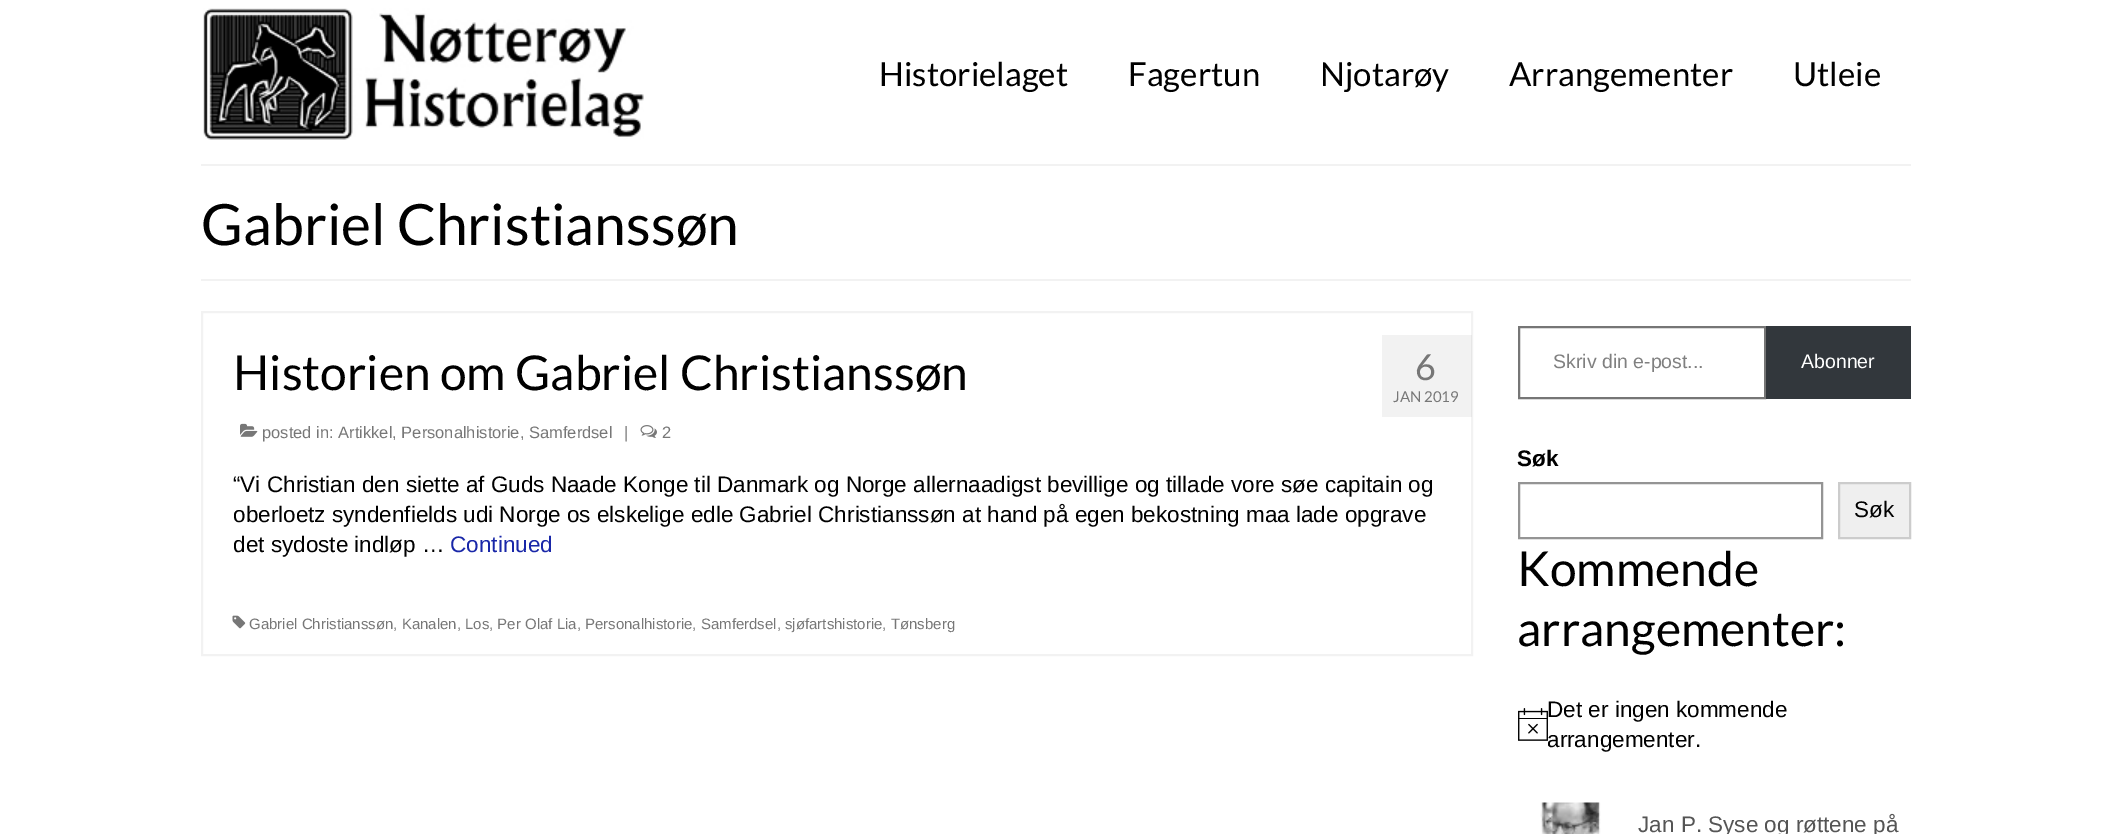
%!PS
<< /PageSize [2112 834] /PageUsesTransparency true >> setpagedevice
/mt/moveto load def
/li/lineto load def
/cp/closepath load def
/fl/fill load def
/st/stroke load def
/gs/gsave load def
/gr/grestore load def
/lw/setlinewidth load def
/co { dup -16 bitshift 255 div exch dup -8 bitshift 255 and 255 div exch 255 and 255 div setrgbcolor } def
/fn { [ exch dup neg 0 0 3 -1 roll 0 0 ] selectfont } def
/tx { co fn moveto show } def
/bx { co rectfill } def
/al { dup .setfillconstantalpha .setstrokeconstantalpha } def
/im { 5 dict begin { /h /w /y /x /name } { exch def } forall
  gsave x y translate w h scale
  w h 8 [w 0 0 h 0 0] name (r) file false 3 colorimage grestore end } def
0 .pushpdf14devicefilter
0 834 translate 1 -1 scale
4 setmiterlimit
0 0 2112 834 16#FFFFFF bx
(media/1.raw) 203 8 441 132 im
201 164 1710 2 16#F2F2F2 bx
201 279 1710 2 16#F2F2F2 bx
2 lw
202 312 1270 343 rectstroke
(media/2.raw) 240 423 18 14 im
(media/3.raw) 640 425 17 13 im
0.05 al
1382 335 90 82 16#000000 bx
1 al
(media/4.raw) 232 615 14 14 im
16#767676 co
1519 327 246 71 rectstroke
1766 326 145 73 16#32373C bx
16#949494 co
1519 483 303 55 rectstroke
16#EFEFEF co
1839 483 mt 1910 483 li 1910 538 li 1839 538 li cp gs fl gr
16#CCCCCC co
st
(media/5.raw) 1518 708 30 33 im
(media/6.raw) 1540 802 61 32 im
(Historielaget) 879 86 /Lato-Regular 33 16#000000 tx
(Fagertun) 1128 86 /Lato-Regular 33 16#000000 tx
(Njotarøy) 1320 86 /Lato-Regular 33 16#000000 tx
(Arrangementer) 1509 86 /Lato-Regular 33 16#000000 tx
(Utleie) 1793 86 /Lato-Regular 33 16#000000 tx
(Gabriel Christianssøn) 201 245 /Lato-Regular 57 16#000000 tx
(Historien om Gabriel Christianssøn) 233 390 /Lato-Regular 48 16#000000 tx
(posted in: Artikkel, Personalhistorie, Samferdsel) 262 438 /LiberationSans-Regular 16.5 16#777777 tx
(|) 624 438 /LiberationSans-Regular 16.5 16#777777 tx
(2) 662 438 /LiberationSans-Regular 16.5 16#777777 tx
(6) 1415 380 /Lato-Regular 36 16#777777 tx
(JAN 2019) 1393 402 /Lato-Regular 15 16#777777 tx
(“Vi Christian den siette af Guds Naade Konge til Danmark og Norge allernaadigst bevillige og tillade vore søe capitain og) 233 492 /LiberationSans-Regular 22.5 16#000000 tx
(oberloetz syndenfields udi Norge os elskelige edle Gabriel Christianssøn at hand på egen bekostning maa lade opgrave) 233 522 /LiberationSans-Regular 22.5 16#000000 tx
(det sydoste indløp …) 233 552 /LiberationSans-Regular 22.5 16#000000 tx
(Continued) 450 552 /LiberationSans-Regular 22.5 16#1927A8 tx
(Gabriel Christianssøn, Kanalen, Los, Per Olaf Lia, Personalhistorie, Samferdsel, sjøfartshistorie, Tønsberg) 249 629 /LiberationSans-Regular 15 16#777777 tx
(Skriv din e-post...) 1553 368 /LiberationSans-Regular 19.5 16#808080 tx
(Abonner) 1801 368 /LiberationSans-Regular 19.5 16#FFFFFF tx
(Søk) 1517 466 /LiberationSans-Bold 22.5 16#000000 tx
(Søk) 1854 517 /LiberationSans-Regular 22.5 16#000000 tx
(Kommende) 1517 586 /Lato-Regular 48 16#000000 tx
(arrangementer:) 1517 646 /Lato-Regular 48 16#000000 tx
(Det er ingen kommende) 1547 717 /LiberationSans-Regular 22.5 16#000000 tx
(arrangementer.) 1547 747 /LiberationSans-Regular 22.5 16#000000 tx
(Jan P. Syse og røttene på) 1638 832 /LiberationSans-Regular 22.5 16#555555 tx
.poppdf14devicefilter showpage
